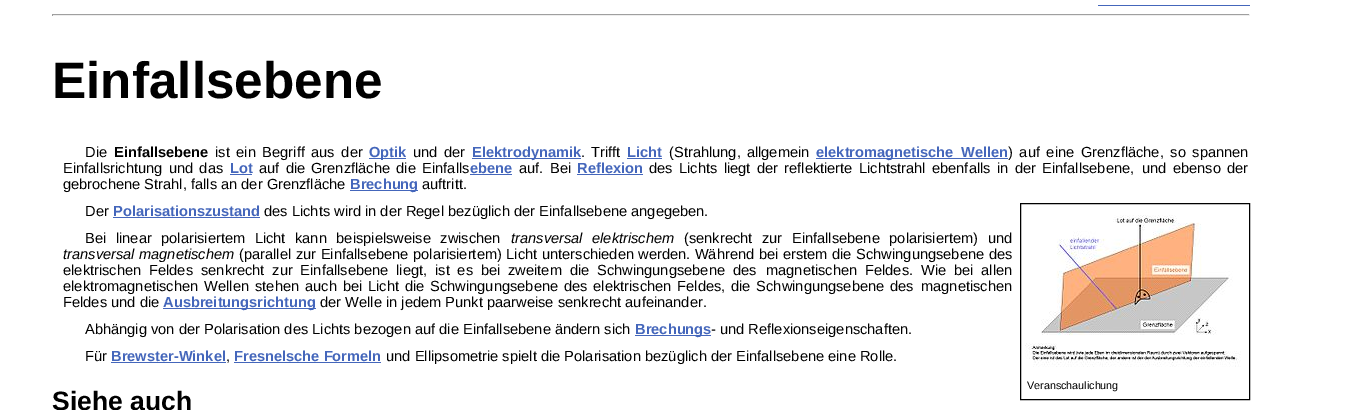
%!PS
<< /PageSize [1347 410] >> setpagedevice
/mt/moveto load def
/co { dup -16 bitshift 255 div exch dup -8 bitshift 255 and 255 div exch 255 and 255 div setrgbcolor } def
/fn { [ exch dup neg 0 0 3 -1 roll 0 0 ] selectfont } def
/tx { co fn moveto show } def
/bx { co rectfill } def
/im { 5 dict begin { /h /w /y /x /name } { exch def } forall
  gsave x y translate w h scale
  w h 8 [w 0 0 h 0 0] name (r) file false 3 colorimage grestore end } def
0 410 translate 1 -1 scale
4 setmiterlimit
0 0 1347 410 16#FFFFFF bx
1098 5 152 1 16#4466BB bx
52 14 1198 1 16#9F9F9F bx
1249 14 1 2 16#EEEEEE bx
52 15 1198 1 16#EEEEEE bx
52 14 1 2 16#9F9F9F bx
369 158 37 1 16#4466BB bx
472 158 109 1 16#4466BB bx
627 158 35 1 16#4466BB bx
816 158 192 1 16#4466BB bx
230 174 22 1 16#4466BB bx
470 174 42 1 16#4466BB bx
577 174 66 1 16#4466BB bx
350 190 68 1 16#4466BB bx
113 217 147 1 16#4466BB bx
163 308 153 1 16#4466BB bx
635 335 76 1 16#4466BB bx
111 362 115 1 16#4466BB bx
234 362 147 1 16#4466BB bx
16#000000 co
1020.5 203.5 229 196 rectstroke
(media/1.raw) 1025 215 216 152 im
(Einfallsebene) 52 98 /LiberationSans-Bold 51.25 16#000000 tx
(Die) 85 157 /LiberationSans-Regular 14.65 16#000000 tx
(Einfallsebene) 114 157 /LiberationSans-Bold 14.65 16#000000 tx
/LiberationSans-Regular 14.65 fn
215 157 mt 2.5 0 32 (ist ein Begriff aus der) widthshow
(Optik) 369 157 /LiberationSans-Bold 14.65 16#4466BB tx
/LiberationSans-Regular 14.65 fn
16#000000 co
413 157 mt 2.5 0 32 (und der) widthshow
(Elektrodynamik) 472 157 /LiberationSans-Bold 14.65 16#4466BB tx
(.) 581 157 /LiberationSans-Regular 14.65 16#000000 tx
(Trifft) 591 157 /LiberationSans-Regular 14.65 16#000000 tx
(Licht) 627 157 /LiberationSans-Bold 14.65 16#4466BB tx
/LiberationSans-Regular 14.65 fn
16#000000 co
669 157 mt 2 0 32 (\(Strahlung, allgemein) widthshow
(elektromagnetische) 816 157 /LiberationSans-Bold 14.65 16#4466BB tx
(Wellen) 961 157 /LiberationSans-Bold 14.65 16#4466BB tx
/LiberationSans-Regular 14.65 fn
16#000000 co
1008 157 mt 2.5 0 32 (\) auf eine Grenzfläche, so spannen) widthshow
63 173 mt 2.25 0 32 (Einfallsrichtung und das) widthshow
(Lot) 230 173 /LiberationSans-Bold 14.65 16#4466BB tx
/LiberationSans-Regular 14.65 fn
16#000000 co
259 173 mt 2.25 0 32 (auf die) widthshow
311 173 mt 2.25 0 32 (Grenzfläche die Einfalls) widthshow
(ebene) 470 173 /LiberationSans-Bold 14.65 16#4466BB tx
/LiberationSans-Regular 14.65 fn
16#000000 co
519 173 mt 2.25 0 32 (auf. Bei) widthshow
(Reflexion) 577 173 /LiberationSans-Bold 14.65 16#4466BB tx
/LiberationSans-Regular 14.65 fn
16#000000 co
649 173 mt 2.25 0 32 (des Lichts liegt der reflektierte Lichtstrahl ebenfalls in der Einfallsebene,) widthshow
1142 173 mt 2.25 0 32 (und ebenso der) widthshow
(gebrochene Strahl, falls an der Grenzfläche) 63 189 /LiberationSans-Regular 14.65 16#000000 tx
(Brechung) 350 189 /LiberationSans-Bold 14.65 16#4466BB tx
(auftritt.) 422 189 /LiberationSans-Regular 14.65 16#000000 tx
(Der) 85 216 /LiberationSans-Regular 14.65 16#000000 tx
(Polarisationszustand) 113 216 /LiberationSans-Bold 14.65 16#4466BB tx
(des Lichts wird in der Regel bezüglich der Einfallsebene angegeben.) 264 216 /LiberationSans-Regular 14.65 16#000000 tx
85 243 mt 5.5 0 32 (Bei linear polarisiertem Licht kann beispielsweise zwischen) widthshow
(transversal) 511 243 /LiberationSans-Italic 14.65 16#000000 tx
(elektrischem) 592 243 /LiberationSans-Italic 14.65 16#000000 tx
/LiberationSans-Regular 14.65 fn
684 243 mt 5.5 0 32 (\(senkrecht zur Einfallsebene polarisiertem\) und) widthshow
(transversal) 63 259 /LiberationSans-Italic 14.65 16#000000 tx
(magnetischem) 139 259 /LiberationSans-Italic 14.65 16#000000 tx
/LiberationSans-Regular 14.65 fn
239 259 mt .5 0 32 (\(parallel zur Einfallsebene polarisiertem\) Licht unterschieden) widthshow
638 259 mt .5 0 32 (werden. Während bei erstem die Schwingungsebene des) widthshow
63 275 mt 3.75 0 32 (elektrischen Feldes) widthshow
201 275 mt 3.75 0 32 (senkrecht zur Einfallsebene liegt, ist es bei zweitem die Schwingungsebene des) widthshow
766 275 mt 3.75 0 32 (magnetischen Feldes. Wie bei allen) widthshow
63 291 mt 2 0 32 (elektromagnetischen Wellen stehen auch bei) widthshow
368 291 mt 1.75 0 32 (Licht die Schwingungsebene des elektrischen Feldes, die Schwingungsebene des) widthshow
(magnetischen) 921 291 /LiberationSans-Regular 14.65 16#000000 tx
(Feldes und die) 63 307 /LiberationSans-Regular 14.65 16#000000 tx
(Ausbreitungsrichtung) 163 307 /LiberationSans-Bold 14.65 16#4466BB tx
(der Welle in jedem Punkt paarweise senkrecht aufeinander.) 320 307 /LiberationSans-Regular 14.65 16#000000 tx
(Abhängig von der Polarisation des Lichts bezogen auf die Einfallsebene ändern sich) 85 334 /LiberationSans-Regular 14.65 16#000000 tx
(Brechungs) 635 334 /LiberationSans-Bold 14.65 16#4466BB tx
(- und Reflexionseigenschaften.) 711 334 /LiberationSans-Regular 14.65 16#000000 tx
(Für) 85 361 /LiberationSans-Regular 14.65 16#000000 tx
(Brewster-Winkel) 111 361 /LiberationSans-Bold 14.65 16#4466BB tx
(,) 226 361 /LiberationSans-Regular 14.65 16#000000 tx
(Fresnelsche Formeln) 234 361 /LiberationSans-Bold 14.65 16#4466BB tx
(und Ellipsometrie spielt die Polarisation bezüglich der Einfallsebene eine Rolle.) 386 361 /LiberationSans-Regular 14.65 16#000000 tx
(Veranschaulichung) 1027 389 /LiberationSans-Regular 10.75 16#000000 tx
(Siehe auch) 52 410 /LiberationSans-Bold 26.5 16#000000 tx
showpage
